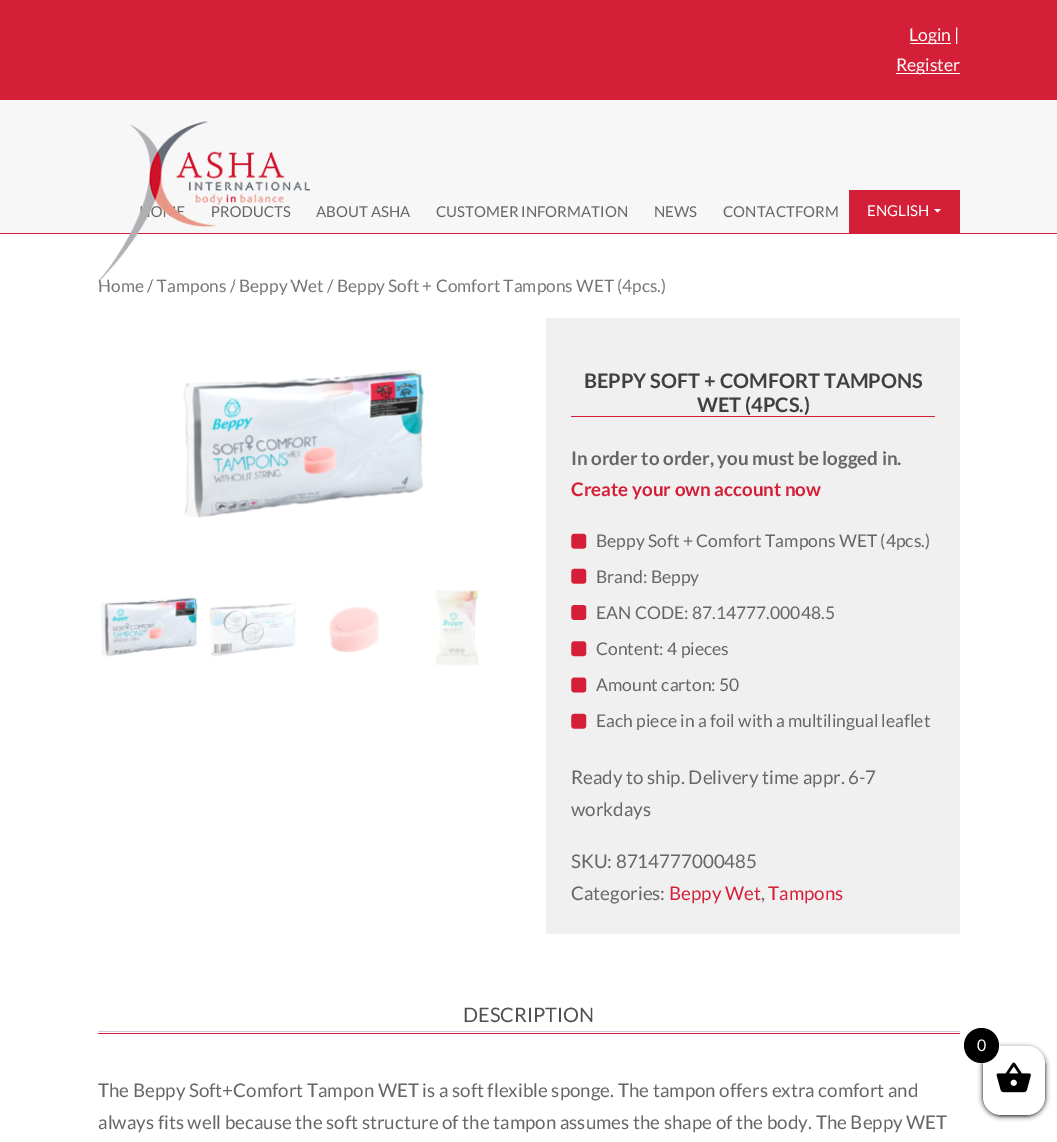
%!PS
<< /PageSize [1057 1142] /PageUsesTransparency true >> setpagedevice
/mt/moveto load def
/li/lineto load def
/cp/closepath load def
/fl/fill load def
/co { dup -16 bitshift 255 div exch dup -8 bitshift 255 and 255 div exch 255 and 255 div setrgbcolor } def
/fn { [ exch dup neg 0 0 3 -1 roll 0 0 ] selectfont } def
/tx { co fn moveto show } def
/bx { co rectfill } def
/al { dup .setfillconstantalpha .setstrokeconstantalpha } def
/ci { newpath 0 360 arc closepath } def
/rr { 5 dict begin { /r /h /w /y /x } { exch def } forall
  x r add y moveto x w add y 2 copy h add r arct x w add y h add x 1 index r arct
  x y h add x y r arct x y 2 copy exch w add exch r arct closepath end } def
/sh { 12 dict begin { /a /b /q /h /w /y /x } { exch def } forall gsave /was 0 def
  9 -2 -9 { dup b mul 4 div /e exch def 1 sub .425 mul 2.718 exch exp 1 add a .99 .min exch div /now exch def
    1 1 now sub 1 was sub div sub al /was now def
    w h .min e 2 mul add 0 gt { x e sub y e sub w e 2 mul add h e 2 mul add
      q e add b .6 mul add w h .min 2 div e add .min 0 .max rr fill } if } for grestore end } def
/im { 5 dict begin { /h /w /y /x /name } { exch def } forall
  gsave x y translate w h scale
  w h 8 [w 0 0 h 0 0] name (r) file false 3 colorimage grestore end } def
0 .pushpdf14devicefilter
0 1142 translate 1 -1 scale
4 setmiterlimit
0 0 1057 1142 16#FFFFFF bx
0 0 1057 100 16#D51F38 bx
910 43 41 1 16#FFFFFF bx
896 73 64 1 16#FFFFFF bx
0 100 1057 133 16#F7F7F7 bx
0 233 1057 1 16#D51F38 bx
849 190 111 43 16#D51F38 bx
16#FFFFFF co
934 209 mt 941 209 li 937.5 212.5 li cp fl
(media/2.raw) 183 370 241 148 im
(media/3.raw) 100 597 98 60 im
(media/4.raw) 209 602 88 55 im
(media/5.raw) 329 606 50 47 im
(media/6.raw) 435 590 44 76 im
546 318 414 616 16#F1F0F0 bx
571 416 364 1 16#D51F38 bx
(media/7.raw) 571 533 16 16 im
(media/7.raw) 571 568 16 16 im
(media/8.raw) 571 605 16 15 im
(media/9.raw) 571 641 16 16 im
(media/10.raw) 571 677 16 16 im
(media/7.raw) 571 713 16 16 im
98 1033 862 1 16#D51F38 bx
98 1031 862 1 16#CFC8D8 bx
16#000000 co
983 1048 62 68 18 2.5 1 sh
16#FFFFFF co
983 1046 62 69 18 rr fl
(media/11.raw) 996 1062 35 31 im
16#000000 co
981.5 1045.5 17.5 ci fl
(Login |) 909 41 /Lato-Regular 17.5 16#FFFFFF tx
(Register) 896 71 /Lato-Regular 17.5 16#FFFFFF tx
(O) 151 217 /Lato-Regular 15 16#666666 tx
(PRODUCTS) 211 217 /Lato-Regular 15 16#666666 tx
(ABOUT ASHA) 316 217 /Lato-Regular 15 16#666666 tx
(CUSTOMER INFORMATION) 436 217 /Lato-Regular 15 16#666666 tx
(NEWS) 654 217 /Lato-Regular 15 16#666666 tx
(CONTACTFORM) 723 217 /Lato-Regular 15 16#666666 tx
(ENGLISH) 867 216 /Lato-Regular 15 16#FFFFFF tx
(Home / Tampons / Beppy Wet / Beppy Soft + Comfort Tampons WET \(4pcs.\)) 98 292 /Lato-Regular 17.25 16#767676 tx
(media/1.raw) 97 121 213 162 im
(BEPPY SOFT + COMFORT TAMPONS) 584 388 /Lato-Bold 20 16#404040 tx
(WET \(4PCS.\)) 697 412 /Lato-Bold 20 16#404040 tx
(In order to order, you must be logged in.) 571 465 /Lato-Bold 18.75 16#666666 tx
(Create your own account now) 571 496 /Lato-Bold 18.75 16#D51F38 tx
(Beppy Soft + Comfort Tampons WET \(4pcs.\)) 596 547 /Lato-Regular 17.5 16#666666 tx
(Brand: Beppy) 596 583 /Lato-Regular 17.5 16#666666 tx
(EAN CODE: 87.14777.00048.5) 596 619 /Lato-Regular 17.5 16#666666 tx
(Content: 4 pieces) 596 655 /Lato-Regular 17.5 16#666666 tx
(Amount carton: 50) 596 691 /Lato-Regular 17.5 16#666666 tx
(Each piece in a foil with a multilingual leaflet) 596 727 /Lato-Regular 17.5 16#666666 tx
(Ready to ship. Delivery time appr. 6-7) 571 784 /Lato-Regular 18.75 16#666666 tx
(workdays) 571 816 /Lato-Regular 18.75 16#666666 tx
(SKU: 8714777000485) 571 868 /Lato-Regular 18.75 16#666666 tx
(Categories:) 571 900 /Lato-Regular 18.75 16#666666 tx
(Beppy Wet) 669 900 /Lato-Regular 18.75 16#D51F38 tx
(,) 761 900 /Lato-Regular 18.75 16#666666 tx
(Tampons) 768 900 /Lato-Regular 18.75 16#D51F38 tx
(DESCRIPTION) 463 1022 /Lato-Regular 20 16#515151 tx
(The Beppy Soft+Comfort Tampon WET is a soft flexible sponge. The tampon offers extra comfort and) 98 1097 /Lato-Regular 18.75 16#666666 tx
(always fits well because the soft structure of the tampon assumes the shape of the body. The Beppy WET) 98 1129 /Lato-Regular 18.75 16#666666 tx
(0) 977 1051 /Lato-Regular 16 16#FFFFFF tx
.poppdf14devicefilter showpage
